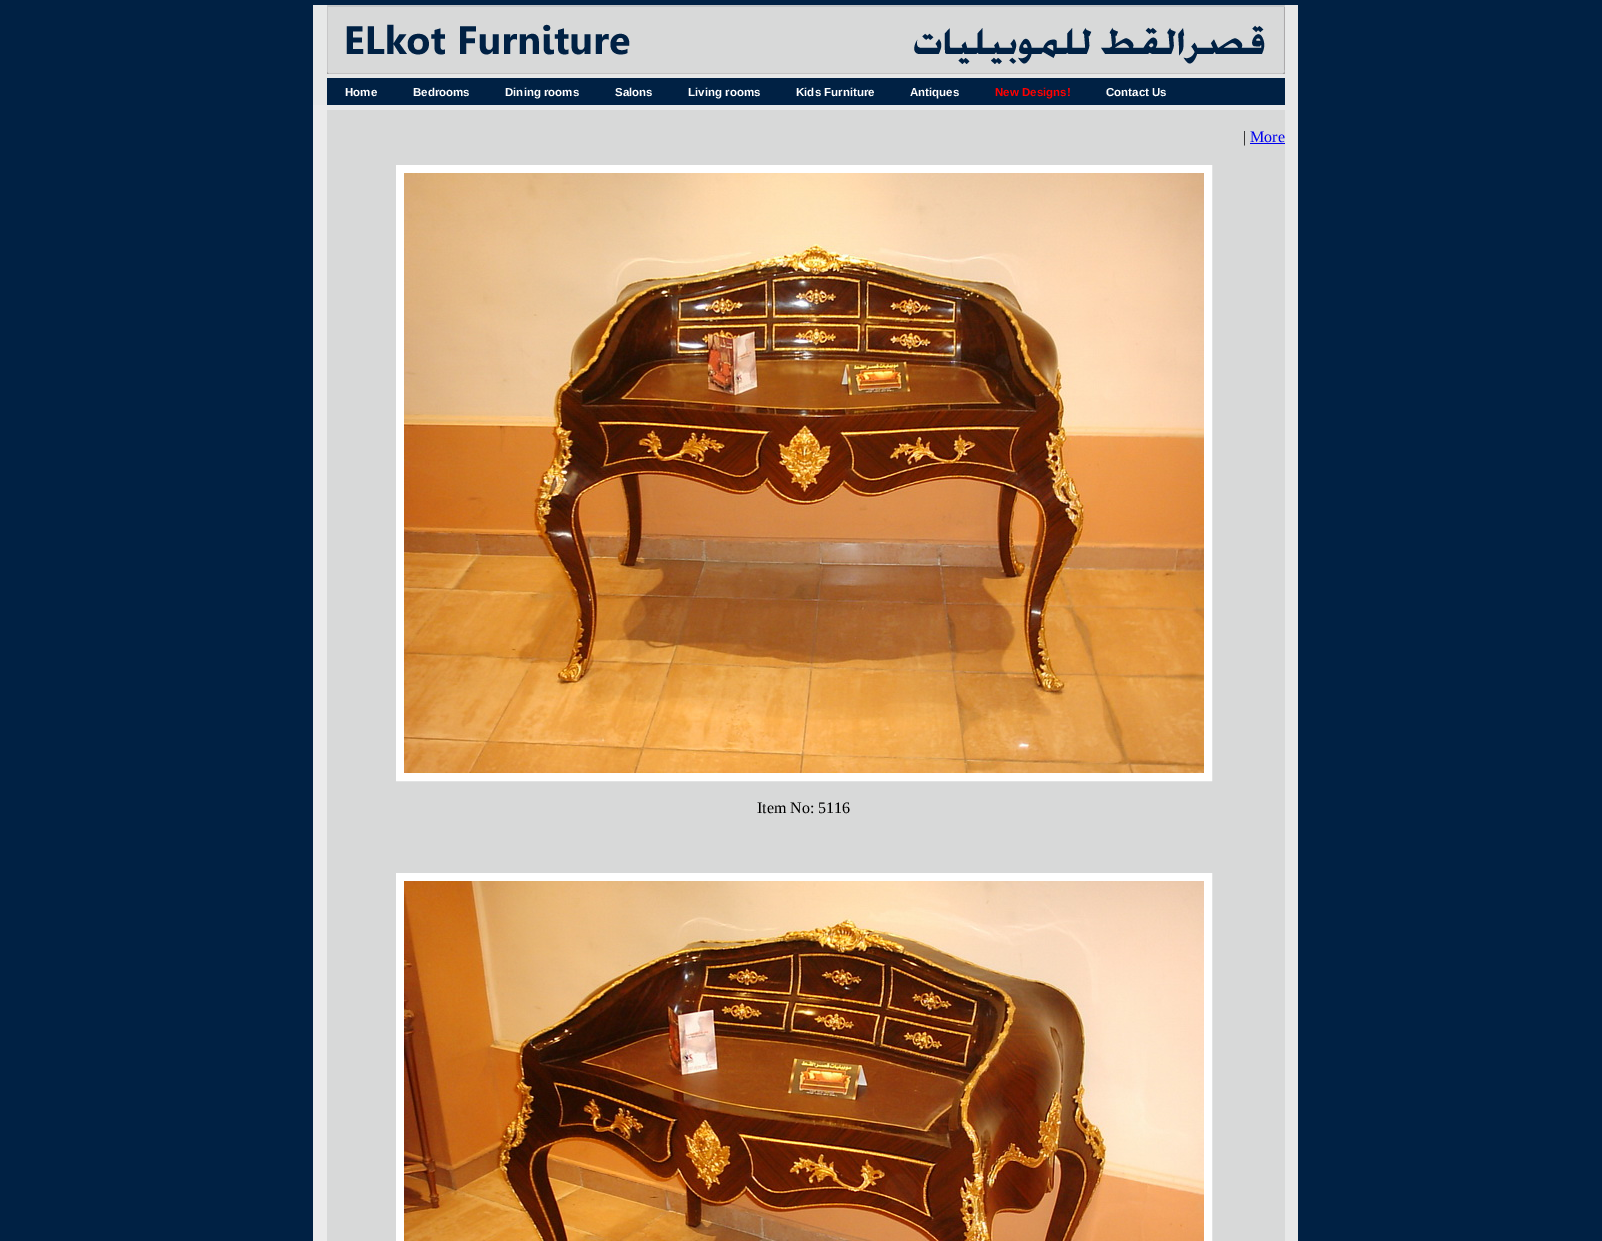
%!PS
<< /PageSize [1602 1241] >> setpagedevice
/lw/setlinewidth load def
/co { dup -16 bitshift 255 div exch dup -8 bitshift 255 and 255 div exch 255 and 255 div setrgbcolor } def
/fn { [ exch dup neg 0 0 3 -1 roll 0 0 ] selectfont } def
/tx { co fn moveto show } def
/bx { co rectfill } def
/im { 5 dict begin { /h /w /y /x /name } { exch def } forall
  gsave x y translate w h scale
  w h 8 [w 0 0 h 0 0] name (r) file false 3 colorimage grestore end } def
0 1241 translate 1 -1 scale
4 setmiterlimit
0 0 1602 1241 16#002144 bx
313 5 14 100 16#E7E8E8 bx
(media/1.raw) 327 5 958 69 im
1285 5 12 105 16#E7E8E8 bx
1297 5 1 105 16#E7E8E8 bx
327 74 958 4 16#E7E8E8 bx
313 105 14 1136 16#EBEBEB bx
327 105 958 5 16#E7E8E8 bx
327 110 958 1131 16#D8D9D9 bx
1250 143 35 1 16#0000EE bx
16#FFFFFF co
8 lw
400 169 808 608 rectstroke
(media/2.raw) 404 173 800 600 im
400 877 808 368 rectstroke
(media/3.raw) 404 881 800 360 im
1285 110 13 1131 16#E7E8E8 bx
(Home) 345 96 /LiberationSans-Bold 11.5 16#FFFFFF tx
(Bedrooms) 413 96 /LiberationSans-Bold 11.5 16#FFFFFF tx
(Dining rooms) 505 96 /LiberationSans-Bold 11.5 16#FFFFFF tx
(Salons) 615 96 /LiberationSans-Bold 11.5 16#FFFFFF tx
(Living rooms) 688 96 /LiberationSans-Bold 11.5 16#FFFFFF tx
(Kids Furniture) 796 96 /LiberationSans-Bold 11.5 16#FFFFFF tx
(Antiques) 910 96 /LiberationSans-Bold 11.5 16#FFFFFF tx
(New Designs!) 995 96 /LiberationSans-Bold 11.5 16#FF0000 tx
(Contact Us) 1106 96 /LiberationSans-Bold 11.5 16#FFFFFF tx
(|) 1243 142 /LiberationSerif-Regular 16 16#000000 tx
(More) 1250 142 /LiberationSerif-Regular 16 16#0000EE tx
(Item No: 5116) 757 813 /LiberationSerif-Regular 16 16#000000 tx
showpage
